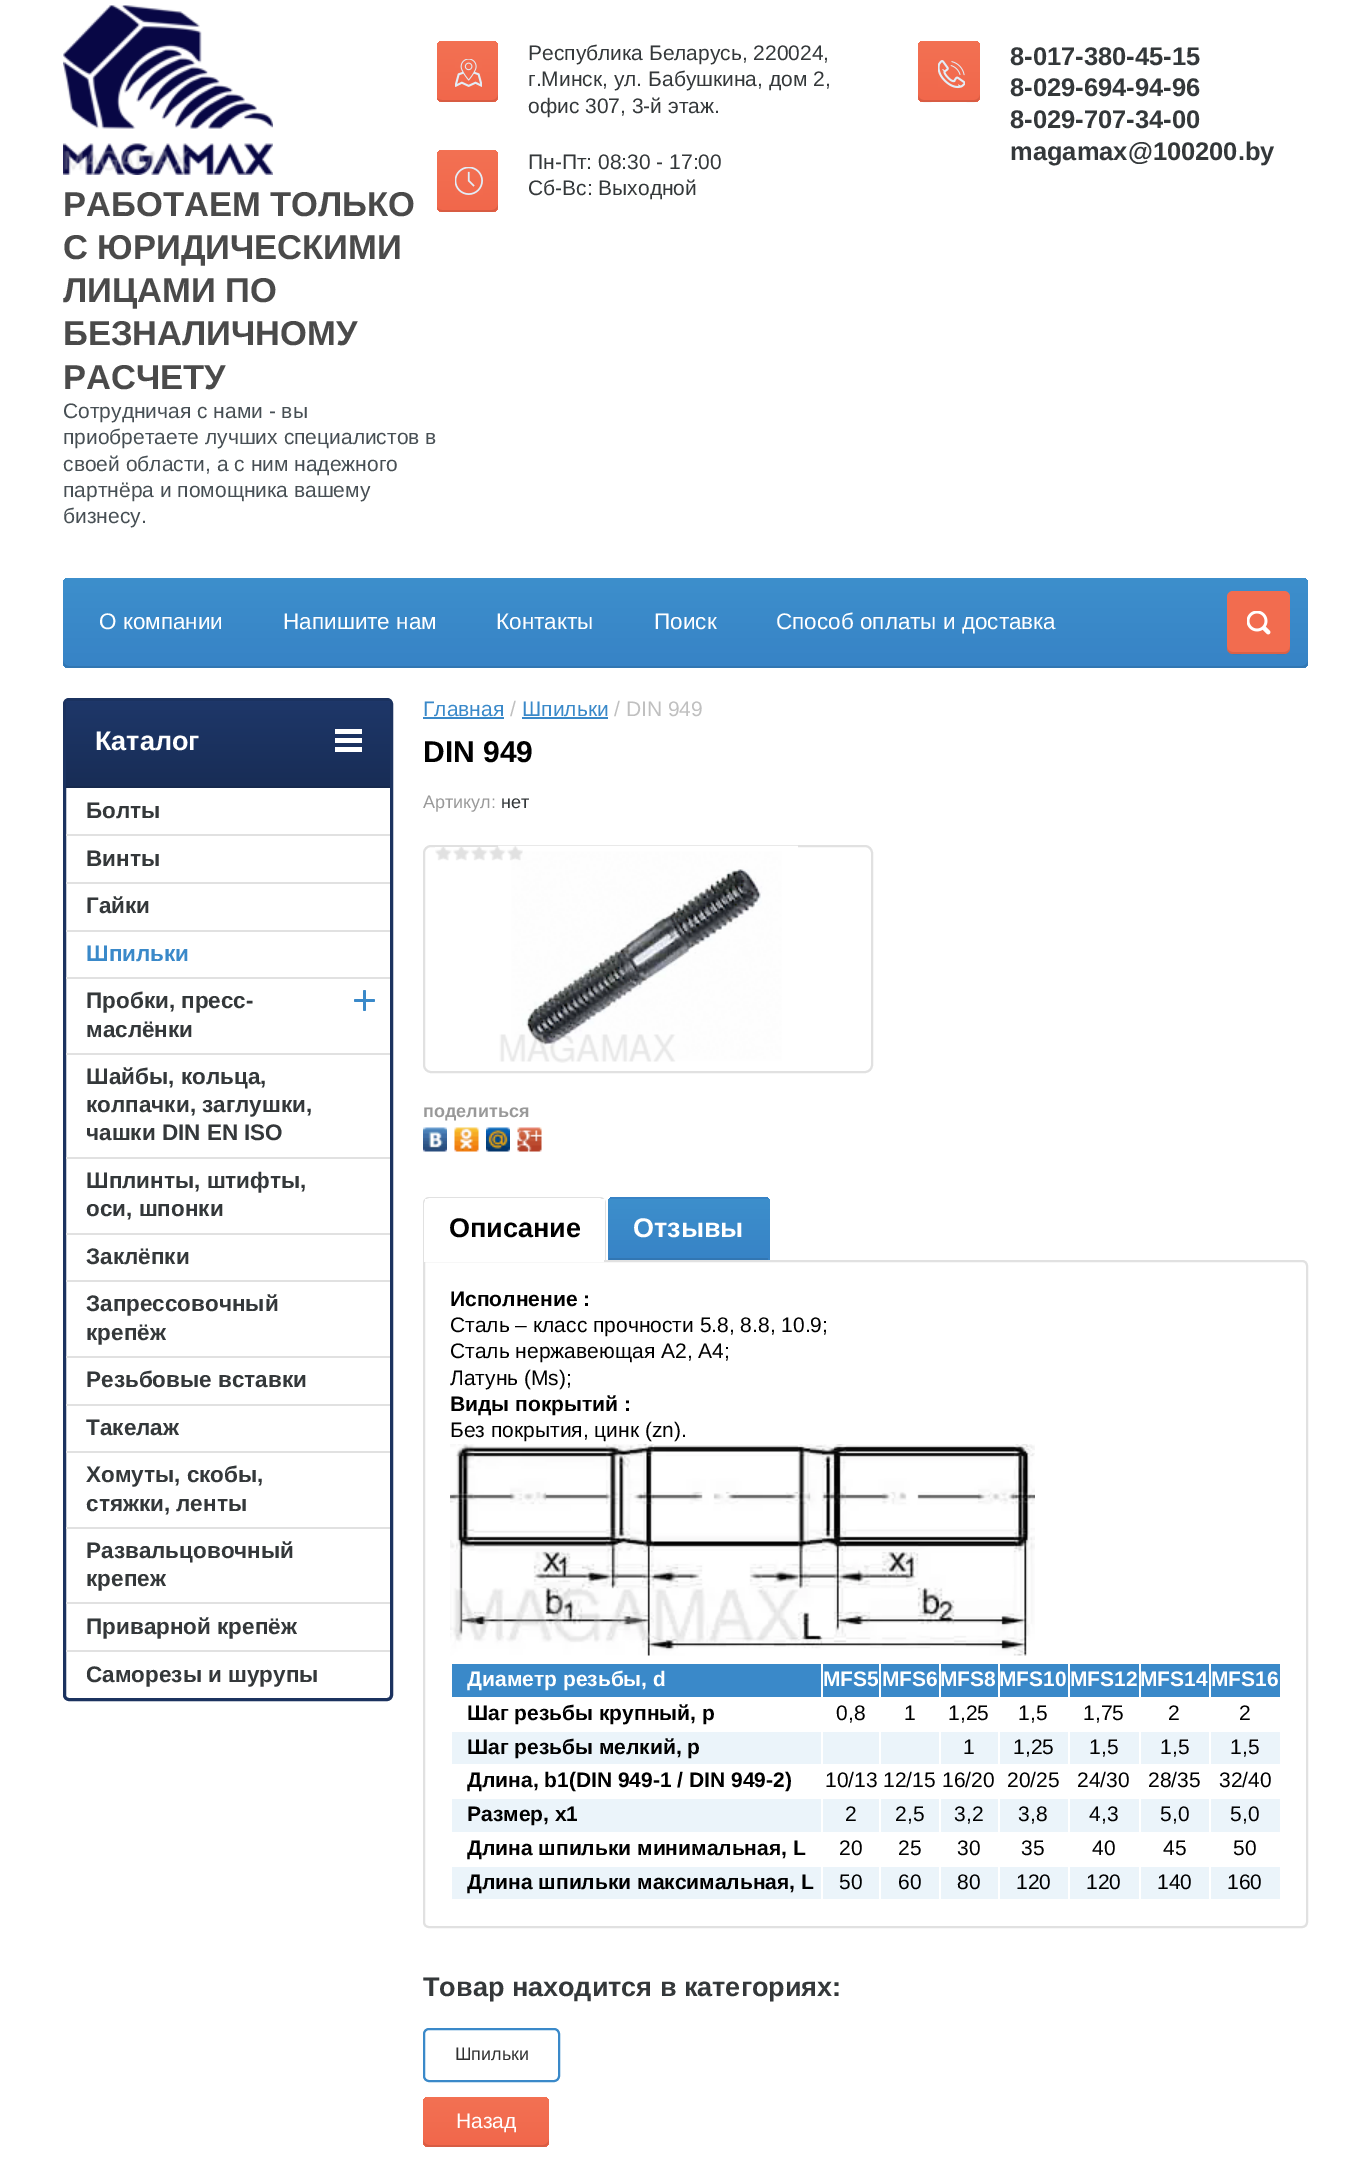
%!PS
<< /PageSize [1370 2165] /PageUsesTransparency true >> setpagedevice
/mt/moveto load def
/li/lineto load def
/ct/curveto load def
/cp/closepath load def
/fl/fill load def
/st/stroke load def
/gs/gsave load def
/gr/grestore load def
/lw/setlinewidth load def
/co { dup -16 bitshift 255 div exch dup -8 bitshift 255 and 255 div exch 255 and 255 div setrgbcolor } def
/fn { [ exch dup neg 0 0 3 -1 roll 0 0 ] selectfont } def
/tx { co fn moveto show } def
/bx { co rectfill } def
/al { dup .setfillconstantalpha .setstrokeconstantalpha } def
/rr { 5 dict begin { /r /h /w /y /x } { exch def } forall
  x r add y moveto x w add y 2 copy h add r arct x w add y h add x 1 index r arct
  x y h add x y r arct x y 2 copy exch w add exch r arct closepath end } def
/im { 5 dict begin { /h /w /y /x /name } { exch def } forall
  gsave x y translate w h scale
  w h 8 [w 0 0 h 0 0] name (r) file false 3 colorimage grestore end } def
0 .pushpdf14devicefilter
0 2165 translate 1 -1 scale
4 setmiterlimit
0 0 1370 2165 16#FFFFFF bx
gs 437 41 61 61 6 rr clip newpath
<< /ShadingType 2 /ColorSpace /DeviceRGB /Coords [467 102 467 41] /Extend [true true] /Function << /FunctionType 2 /Domain [0 1] /C0 [.945 .404 .294] /C1 [.953 .443 .325] /N 1 >> >> shfill gr
0.1 al
16#000000 co
437 98 mt 438 100 440 102 443 102 ct 492 102 li 495 102 498 99 498 96 ct 498 94 li 498 98 495 100 492 100 ct 442 100 li 440 100 438 99 437 98 ct cp fl
1 al
(media/1.raw) 455 59 27 28 im
gs 437 150 61 62 6 rr clip newpath
<< /ShadingType 2 /ColorSpace /DeviceRGB /Coords [467 212 467 150] /Extend [true true] /Function << /FunctionType 2 /Domain [0 1] /C0 [.945 .404 .294] /C1 [.953 .443 .325] /N 1 >> >> shfill gr
0.1 al
437 207 mt 438 210 440 212 443 212 ct 492 212 li 495 212 498 209 498 206 ct 498 204 li 498 207 495 210 492 210 ct 442 210 li 440 210 438 209 437 207 ct cp fl
1 al
(media/2.raw) 455 167 28 28 im
gs 918 41 62 61 6 rr clip newpath
<< /ShadingType 2 /ColorSpace /DeviceRGB /Coords [949 102 949 41] /Extend [true true] /Function << /FunctionType 2 /Domain [0 1] /C0 [.945 .404 .294] /C1 [.953 .443 .325] /N 1 >> >> shfill gr
0.1 al
918 94 mt 918 104 924 102 932 102 ct 966 102 li 974 102 980 104 980 94 ct 980 98 977 100 974 100 ct 924 100 li 921 100 918 98 918 94 ct cp fl
1 al
(media/3.raw) 938 60 27 29 im
(media/4.raw) 63 5 210 170 im
gs 63 578 1245 90 6 rr clip newpath
<< /ShadingType 2 /ColorSpace /DeviceRGB /Coords [686 668 686 578] /Extend [true true] /Function << /FunctionType 2 /Domain [0 1] /C0 [.216 .514 .776] /C1 [.239 .561 .8] /N 1 >> >> shfill gr
0.1 al
63 660 mt 63 662 li 63 665 66 668 69 668 ct 1302 668 li 1305 668 1308 665 1308 662 ct 1308 660 li 1308 663 1305 666 1302 666 ct 69 666 li 66 666 63 663 63 660 ct cp fl
1 al
16#F26C4F co
1227 591 63 63 6 rr fl
0.1 al
16#000000 co
1227 646 mt 1227 656 1233 654 1242 654 ct 1276 654 li 1284 654 1290 656 1290 646 ct 1290 650 1287 652 1284 652 ct 1233 652 li 1230 652 1227 650 1227 646 ct cp fl
1 al
(media/5.raw) 1247 611 24 24 im
16#1B325F co
3 lw
64.5 699.5 327 1000 4.5 rr st
gs 66 701 mt 390 701 li 390 786 li 66 786 li cp clip newpath
<< /ShadingType 2 /ColorSpace /DeviceRGB /Coords [228 788 228 701] /Extend [true true] /Function << /FunctionType 2 /Domain [0 1] /C0 [.094 .176 .337] /C1 [.118 .216 .412] /N 1 >> >> shfill gr
66 786 324 2 16#16294D bx
335 729 27 5 16#FFFFFF bx
335 738 27 5 16#FFFFFF bx
335 747 27 5 16#FFFFFF bx
66 834 324 2 16#E1E1E1 bx
66 882 324 2 16#E1E1E1 bx
66 930 324 2 16#E1E1E1 bx
66 977 324 2 16#E1E1E1 bx
(media/6.raw) 354 990 21 21 im
66 1053 324 2 16#E1E1E1 bx
66 1157 324 2 16#E1E1E1 bx
66 1233 324 2 16#E1E1E1 bx
66 1280 324 2 16#E1E1E1 bx
66 1356 324 2 16#E1E1E1 bx
66 1404 324 2 16#E1E1E1 bx
66 1451 324 2 16#E1E1E1 bx
66 1527 324 2 16#E1E1E1 bx
66 1602 324 2 16#E1E1E1 bx
66 1650 324 2 16#E1E1E1 bx
423 717 81 2 16#3A89C9 bx
522 717 86 2 16#3A89C9 bx
16#E1E1E1 co
2 lw
424 846 448 226 7 rr st
(media/8.raw) 498 845 300 218 im
(media/7.raw) 435 846 88 15 im
(media/9.raw) 423 1127 24 25 im
(media/10.raw) 454 1127 25 25 im
(media/11.raw) 486 1127 24 25 im
(media/12.raw) 517 1127 25 25 im
424 1261 mt 1302 1261 li 1305 1261 1307 1263 1307 1266 ct 1307 1922 li 1307 1925 1305 1927 1302 1927 ct 429 1927 li 426 1927 424 1925 424 1922 ct cp st
16#FFFFFF co
429 1197 mt 600 1197 li 603.5 1197 606 1199.5 606 1203 ct 606 1262 li 423 1262 li 423 1203 li 423 1199.5 425.5 1197 429 1197 ct cp fl
16#E1E1E1 co
429 1197 mt 600 1197 li 603 1197 606 1200 606 1203 ct 606 1262 li 423 1262 li 423 1203 li 423 1200 426 1197 429 1197 ct cp 429 1198 mt 600 1198 li 602 1198 604 1201 604 1203 ct 604 1262 li 424 1262 li 424 1203 li 424 1201 427 1198 429 1198 ct cp eofill
425 1199 180 61 16#FFFFFF bx
gs
614 1197 mt 764 1197 li 767.5 1197 770 1199.5 770 1203 ct 770 1260 li 608 1260 li 608 1203 li 608 1199.5 610.5 1197 614 1197 ct cp clip newpath
gs 608 1197 mt 770 1197 li 770 1199 li 608 1199 li cp clip newpath
<< /ShadingType 2 /ColorSpace /DeviceRGB /Coords [689 1199 689 1137] /Extend [true true] /Function << /FunctionType 2 /Domain [0 1] /C0 [.216 .514 .776] /C1 [.239 .561 .8] /N 1 >> >> shfill gr
gs 608 1199 mt 770 1199 li 770 1260 li 608 1260 li cp clip newpath
<< /ShadingType 2 /ColorSpace /DeviceRGB /Coords [689 1260 689 1199] /Extend [true true] /Function << /FunctionType 2 /Domain [0 1] /C0 [.216 .514 .776] /C1 [.239 .561 .8] /N 1 >> >> shfill gr
gr
609 1258 159 2 16#3276B2 bx
(media/13.raw) 450 1444 585 212 im
452 1664 828 33 16#3A89C9 bx
821 1662 2 36 16#FFFFFF bx
879 1662 2 36 16#FFFFFF bx
939 1662 2 36 16#FFFFFF bx
998 1662 2 36 16#FFFFFF bx
1068 1662 2 36 16#FFFFFF bx
1139 1662 2 36 16#FFFFFF bx
1209 1662 2 36 16#FFFFFF bx
452 1732 828 32 16#EBF4FA bx
821 1730 2 36 16#FFFFFF bx
879 1730 2 36 16#FFFFFF bx
939 1730 2 36 16#FFFFFF bx
998 1730 2 36 16#FFFFFF bx
1068 1730 2 36 16#FFFFFF bx
1139 1730 2 36 16#FFFFFF bx
1209 1730 2 36 16#FFFFFF bx
452 1799 828 33 16#EBF4FA bx
821 1797 2 36 16#FFFFFF bx
879 1797 2 36 16#FFFFFF bx
939 1797 2 36 16#FFFFFF bx
998 1797 2 36 16#FFFFFF bx
1068 1797 2 36 16#FFFFFF bx
1139 1797 2 36 16#FFFFFF bx
1209 1797 2 36 16#FFFFFF bx
452 1867 828 32 16#EBF4FA bx
821 1865 2 36 16#FFFFFF bx
879 1865 2 36 16#FFFFFF bx
939 1865 2 36 16#FFFFFF bx
998 1865 2 36 16#FFFFFF bx
1068 1865 2 36 16#FFFFFF bx
1139 1865 2 36 16#FFFFFF bx
1209 1865 2 36 16#FFFFFF bx
16#3A89C9 co
424 2029 135 52 5 rr st
gs 423 2097 126 50 6 rr clip newpath
<< /ShadingType 2 /ColorSpace /DeviceRGB /Coords [486 2147 486 2097] /Extend [true true] /Function << /FunctionType 2 /Domain [0 1] /C0 [.945 .404 .294] /C1 [.953 .443 .325] /N 1 >> >> shfill gr
0.1 al
16#000000 co
423 2139 mt 423 2141 li 423 2144 426 2147 429 2147 ct 543 2147 li 546 2147 549 2144 549 2141 ct 549 2139 li 549 2142 546 2145 543 2145 ct 429 2145 li 426 2145 423 2142 423 2139 ct cp fl
1 al
(Республика Беларусь, 220024,) 528 60 /LiberationSans-Regular 21 16#34383A tx
(г.Минск, ул. Бабушкина, дом 2,) 528 86 /LiberationSans-Regular 21 16#34383A tx
(офис 307, 3-й этаж.) 528 113 /LiberationSans-Regular 21 16#34383A tx
(Пн-Пт: 08:30 - 17:00) 528 169 /LiberationSans-Regular 21 16#34383A tx
(Сб-Вс: Выходной) 528 195 /LiberationSans-Regular 21 16#34383A tx
(8-017-380-45-15) 1010 65 /LiberationSans-Bold 25.5 16#34383A tx
(8-029-694-94-96) 1010 96 /LiberationSans-Bold 25.5 16#34383A tx
(8-029-707-34-00) 1010 128 /LiberationSans-Bold 25.5 16#34383A tx
(magamax@100200.by) 1010 160 /LiberationSans-Bold 25.5 16#34383A tx
(РАБОТАЕМ ТОЛЬКО) 63 216 /LiberationSans-Bold 34.5 16#4A4A4A tx
(С ЮРИДИЧЕСКИМИ) 63 259 /LiberationSans-Bold 34.5 16#4A4A4A tx
(ЛИЦАМИ ПО) 63 302 /LiberationSans-Bold 34.5 16#4A4A4A tx
(БЕЗНАЛИЧНОМУ) 63 345 /LiberationSans-Bold 34.5 16#4A4A4A tx
(РАСЧЕТУ) 63 389 /LiberationSans-Bold 34.5 16#4A4A4A tx
(Сотрудничая с нами - вы) 63 418 /LiberationSans-Regular 21 16#474F54 tx
(приобретаете лучших специалистов в) 63 444 /LiberationSans-Regular 21 16#474F54 tx
(своей области, а с ним надежного) 63 471 /LiberationSans-Regular 21 16#474F54 tx
(партнёра и помощника вашему) 63 497 /LiberationSans-Regular 21 16#474F54 tx
(бизнесу.) 63 523 /LiberationSans-Regular 21 16#474F54 tx
(О компании) 99 629 /LiberationSans-Regular 22.5 16#FFFFFF tx
(Напишите нам) 283 629 /LiberationSans-Regular 22.5 16#FFFFFF tx
(Контакты) 496 629 /LiberationSans-Regular 22.5 16#FFFFFF tx
(Поиск) 654 629 /LiberationSans-Regular 22.5 16#FFFFFF tx
(Способ оплаты и доставка) 776 629 /LiberationSans-Regular 22.5 16#FFFFFF tx
(Каталог) 95 750 /LiberationSans-Bold 27 16#FFFFFF tx
(Болты) 86 818 /LiberationSans-Bold 22.5 16#34383A tx
(Винты) 86 866 /LiberationSans-Bold 22.5 16#34383A tx
(Гайки) 86 913 /LiberationSans-Bold 22.5 16#34383A tx
(Шпильки) 86 961 /LiberationSans-Bold 22.5 16#3A89C9 tx
(Пробки, пресс-) 86 1008 /LiberationSans-Bold 22.5 16#34383A tx
(маслёнки) 86 1037 /LiberationSans-Bold 22.5 16#34383A tx
(Шайбы, кольца,) 86 1084 /LiberationSans-Bold 22.5 16#34383A tx
(колпачки, заглушки,) 86 1112 /LiberationSans-Bold 22.5 16#34383A tx
(чашки DIN EN ISO) 86 1140 /LiberationSans-Bold 22.5 16#34383A tx
(Шплинты, штифты,) 86 1188 /LiberationSans-Bold 22.5 16#34383A tx
(оси, шпонки) 86 1216 /LiberationSans-Bold 22.5 16#34383A tx
(Заклёпки) 86 1264 /LiberationSans-Bold 22.5 16#34383A tx
(Запрессовочный) 86 1311 /LiberationSans-Bold 22.5 16#34383A tx
(крепёж) 86 1340 /LiberationSans-Bold 22.5 16#34383A tx
(Резьбовые вставки) 86 1387 /LiberationSans-Bold 22.5 16#34383A tx
(Такелаж) 86 1435 /LiberationSans-Bold 22.5 16#34383A tx
(Хомуты, скобы,) 86 1482 /LiberationSans-Bold 22.5 16#34383A tx
(стяжки, ленты) 86 1511 /LiberationSans-Bold 22.5 16#34383A tx
(Развальцовочный) 86 1558 /LiberationSans-Bold 22.5 16#34383A tx
(крепеж) 86 1586 /LiberationSans-Bold 22.5 16#34383A tx
(Приварной крепёж) 86 1634 /LiberationSans-Bold 22.5 16#34383A tx
(Саморезы и шурупы) 86 1682 /LiberationSans-Bold 22.5 16#34383A tx
(Главная) 423 716 /LiberationSans-Regular 21 16#3A89C9 tx
(/) 510 716 /LiberationSans-Regular 21 16#C0C0C0 tx
(Шпильки) 522 716 /LiberationSans-Regular 21 16#3A89C9 tx
(/ DIN 949) 614 716 /LiberationSans-Regular 21 16#C0C0C0 tx
(DIN 949) 423 762 /LiberationSans-Bold 30 16#000000 tx
(Артикул:) 423 808 /LiberationSans-Regular 18 16#999999 tx
(нет) 501 808 /LiberationSans-Regular 18 16#34383A tx
(поделиться) 423 1117 /LiberationSans-Bold 18 16#999999 tx
(Описание) 449 1237 /LiberationSans-Bold 27 16#000000 tx
(Отзывы) 633 1237 /LiberationSans-Bold 27 16#FFFFFF tx
(Исполнение :) 450 1306 /LiberationSans-Bold 21 16#000000 tx
(Сталь – класс прочности 5.8, 8.8, 10.9;) 450 1332 /LiberationSans-Regular 21 16#000000 tx
(Сталь нержавеющая A2, A4;) 450 1358 /LiberationSans-Regular 21 16#000000 tx
(Латунь \(Ms\);) 450 1385 /LiberationSans-Regular 21 16#000000 tx
(Виды покрытий :) 450 1411 /LiberationSans-Bold 21 16#000000 tx
(Без покрытия, цинк \(zn\).) 450 1437 /LiberationSans-Regular 21 16#000000 tx
(Диаметр резьбы, d) 467 1686 /LiberationSans-Bold 21 16#FFFFFF tx
(MFS5) 823 1686 /LiberationSans-Bold 21 16#FFFFFF tx
(MFS6) 882 1686 /LiberationSans-Bold 21 16#FFFFFF tx
(MFS8) 940 1686 /LiberationSans-Bold 21 16#FFFFFF tx
(MFS10) 999 1686 /LiberationSans-Bold 21 16#FFFFFF tx
(MFS12) 1070 1686 /LiberationSans-Bold 21 16#FFFFFF tx
(MFS14) 1140 1686 /LiberationSans-Bold 21 16#FFFFFF tx
(MFS16) 1211 1686 /LiberationSans-Bold 21 16#FFFFFF tx
(Шаг резьбы крупный, p) 467 1720 /LiberationSans-Bold 21 16#000000 tx
(0,8) 836 1720 /LiberationSans-Regular 21 16#000000 tx
(1) 904 1720 /LiberationSans-Regular 21 16#000000 tx
(1,25) 948 1720 /LiberationSans-Regular 21 16#000000 tx
(1,5) 1018 1720 /LiberationSans-Regular 21 16#000000 tx
(1,75) 1083 1720 /LiberationSans-Regular 21 16#000000 tx
(2) 1168 1720 /LiberationSans-Regular 21 16#000000 tx
(2) 1239 1720 /LiberationSans-Regular 21 16#000000 tx
(Шаг резьбы мелкий, p) 467 1754 /LiberationSans-Bold 21 16#000000 tx
(1) 963 1754 /LiberationSans-Regular 21 16#000000 tx
(1,25) 1013 1754 /LiberationSans-Regular 21 16#000000 tx
(1,5) 1089 1754 /LiberationSans-Regular 21 16#000000 tx
(1,5) 1160 1754 /LiberationSans-Regular 21 16#000000 tx
(1,5) 1230 1754 /LiberationSans-Regular 21 16#000000 tx
(Длина, b1\(DIN 949-1 / DIN 949-2\)) 467 1787 /LiberationSans-Bold 21 16#000000 tx
(10/13) 825 1787 /LiberationSans-Regular 21 16#000000 tx
(12/15) 883 1787 /LiberationSans-Regular 21 16#000000 tx
(16/20) 942 1787 /LiberationSans-Regular 21 16#000000 tx
(20/25) 1007 1787 /LiberationSans-Regular 21 16#000000 tx
(24/30) 1077 1787 /LiberationSans-Regular 21 16#000000 tx
(28/35) 1148 1787 /LiberationSans-Regular 21 16#000000 tx
(32/40) 1219 1787 /LiberationSans-Regular 21 16#000000 tx
(Размер, x1) 467 1821 /LiberationSans-Bold 21 16#000000 tx
(2) 845 1821 /LiberationSans-Regular 21 16#000000 tx
(2,5) 895 1821 /LiberationSans-Regular 21 16#000000 tx
(3,2) 954 1821 /LiberationSans-Regular 21 16#000000 tx
(3,8) 1018 1821 /LiberationSans-Regular 21 16#000000 tx
(4,3) 1089 1821 /LiberationSans-Regular 21 16#000000 tx
(5,0) 1160 1821 /LiberationSans-Regular 21 16#000000 tx
(5,0) 1230 1821 /LiberationSans-Regular 21 16#000000 tx
(Длина шпильки минимальная, L) 467 1855 /LiberationSans-Bold 21 16#000000 tx
(20) 839 1855 /LiberationSans-Regular 21 16#000000 tx
(25) 898 1855 /LiberationSans-Regular 21 16#000000 tx
(30) 957 1855 /LiberationSans-Regular 21 16#000000 tx
(35) 1021 1855 /LiberationSans-Regular 21 16#000000 tx
(40) 1092 1855 /LiberationSans-Regular 21 16#000000 tx
(45) 1163 1855 /LiberationSans-Regular 21 16#000000 tx
(50) 1233 1855 /LiberationSans-Regular 21 16#000000 tx
(Длина шпильки максимальная, L) 467 1889 /LiberationSans-Bold 21 16#000000 tx
(50) 839 1889 /LiberationSans-Regular 21 16#000000 tx
(60) 898 1889 /LiberationSans-Regular 21 16#000000 tx
(80) 957 1889 /LiberationSans-Regular 21 16#000000 tx
(120) 1016 1889 /LiberationSans-Regular 21 16#000000 tx
(120) 1086 1889 /LiberationSans-Regular 21 16#000000 tx
(140) 1157 1889 /LiberationSans-Regular 21 16#000000 tx
(160) 1227 1889 /LiberationSans-Regular 21 16#000000 tx
(Товар находится в категориях:) 423 1996 /LiberationSans-Bold 27 16#34383A tx
(Шпильки) 455 2060 /LiberationSans-Regular 18 16#303030 tx
(Назад) 456 2128 /LiberationSans-Regular 21 16#FFFFFF tx
.poppdf14devicefilter showpage
